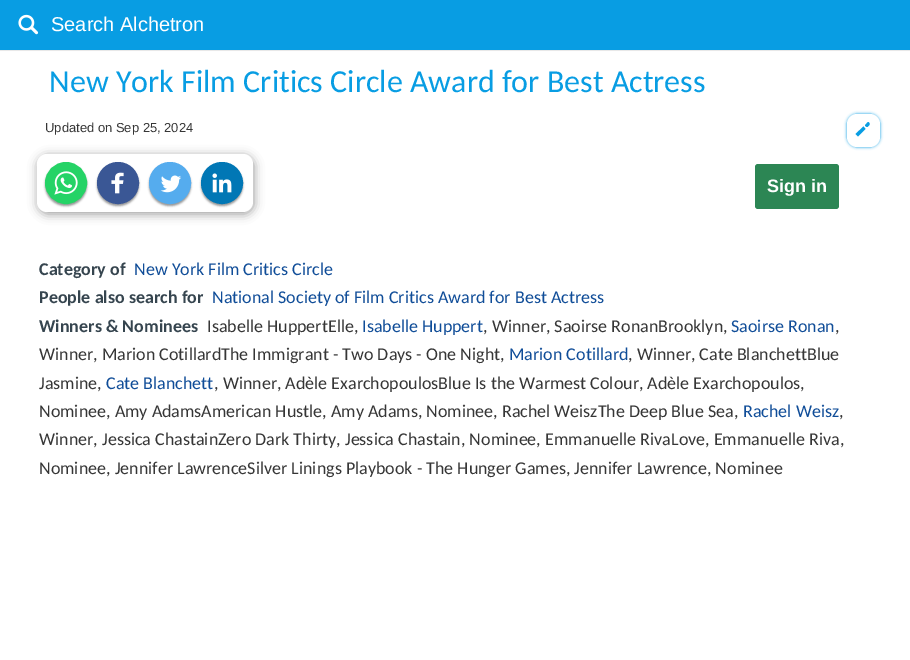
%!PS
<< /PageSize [910 660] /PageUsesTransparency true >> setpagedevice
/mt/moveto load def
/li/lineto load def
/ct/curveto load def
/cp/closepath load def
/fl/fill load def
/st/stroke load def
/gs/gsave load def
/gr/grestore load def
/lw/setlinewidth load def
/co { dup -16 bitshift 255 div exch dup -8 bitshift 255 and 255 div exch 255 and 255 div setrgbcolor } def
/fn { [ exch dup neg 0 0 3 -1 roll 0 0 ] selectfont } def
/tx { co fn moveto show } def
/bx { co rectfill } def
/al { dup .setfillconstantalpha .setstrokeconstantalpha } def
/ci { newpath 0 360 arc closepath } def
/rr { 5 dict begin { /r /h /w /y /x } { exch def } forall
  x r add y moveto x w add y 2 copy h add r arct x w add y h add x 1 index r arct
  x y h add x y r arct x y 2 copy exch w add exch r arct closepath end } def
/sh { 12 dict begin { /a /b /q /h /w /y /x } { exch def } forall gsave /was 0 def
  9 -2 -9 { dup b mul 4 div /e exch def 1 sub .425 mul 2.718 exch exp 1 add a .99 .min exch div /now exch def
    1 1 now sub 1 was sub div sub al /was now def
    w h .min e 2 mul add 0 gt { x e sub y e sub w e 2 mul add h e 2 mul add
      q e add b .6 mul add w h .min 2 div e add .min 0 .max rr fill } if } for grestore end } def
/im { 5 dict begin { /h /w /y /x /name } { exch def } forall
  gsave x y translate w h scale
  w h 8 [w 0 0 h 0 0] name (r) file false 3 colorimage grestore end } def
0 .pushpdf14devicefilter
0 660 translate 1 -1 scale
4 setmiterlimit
0 0 910 660 16#FFFFFF bx
16#AAAAAA co
0 0 910 50 0 .5 1 sh
0 0 910 50 16#089DE3 bx
(media/1.raw) 18 14 21 21 im
847 114 33 33 10 1.5 1 sh
16#FFFFFF co
847 114 33 33 10 rr fl
16#089DE3 co
863.5 126.5 mt 865.5 129 li 858 136.5 li 855.5 134 li cp fl
869 122.5 mt 870 124 870 124.5 868.5 126 ct 868 126.5 867 127.5 866 126.5 ct 864.5 125.5 865 125 866.5 123.5 ct 867 123 868 121.5 869 122.5 ct cp fl
16#000000 co
38 156 216 58 10 5 .4 sh
16#FFFFFF co
37 154 216 58 10 rr fl
16#000000 co
45 164 42 42 21 1 .4 sh
16#25D366 co
66 183 20 ci gs fl gr
2 lw
st
(media/2.raw) 54 171 24 24 im
16#000000 co
97 164 42 42 21 1 .4 sh
16#3A5795 co
118 183 18 ci gs fl gr
6 lw
st
(media/3.raw) 111 172 13 22 im
16#000000 co
149 164 42 42 21 1 .4 sh
16#55ACEE co
170 183 18 ci gs fl gr
st
(media/4.raw) 160 175 22 18 im
16#000000 co
201 164 42 42 21 1 .4 sh
16#0177B5 co
222 183 18 ci gs fl gr
st
(media/5.raw) 212 173 20 20 im
16#2C8654 co
755 164 84 45 3 rr fl
(Search Alchetron) 51 31 /LiberationSans-Regular 20 16#FFFFFF tx
(New York Film Critics Circle Award for Best Actress) 49 92 /Carlito-Regular 32 16#089DE3 tx
(Updated on Sep 25, 2024) 45 132 /LiberationSans-Regular 13 16#363636 tx
(Sign in) 767 192 /LiberationSans-Bold 18 16#FFFFFF tx
(Category of) 39 275 /Carlito-Bold 18 16#36454F tx
(New York Film Critics Circle) 134 275 /Carlito-Regular 18 16#104D98 tx
(People also search for) 39 303 /Carlito-Bold 18 16#36454F tx
(National Society of Film Critics Award for Best Actress) 212 303 /Carlito-Regular 18 16#104D98 tx
(Winners & Nominees) 39 332 /Carlito-Bold 18 16#36454F tx
(Isabelle HuppertElle,) 207 332 /Carlito-Regular 18 16#363636 tx
(Isabelle Huppert) 362 332 /Carlito-Regular 18 16#104D98 tx
(, Winner, Saoirse RonanBrooklyn,) 483 332 /Carlito-Regular 18 16#363636 tx
(Saoirse Ronan) 731 332 /Carlito-Regular 18 16#104D98 tx
(,) 835 332 /Carlito-Regular 18 16#363636 tx
(Winner, Marion CotillardThe Immigrant - Two Days - One Night,) 39 360 /Carlito-Regular 18 16#363636 tx
(Marion Cotillard) 509 360 /Carlito-Regular 18 16#104D98 tx
(, Winner, Cate BlanchettBlue) 628 360 /Carlito-Regular 18 16#363636 tx
(Jasmine,) 39 389 /Carlito-Regular 18 16#363636 tx
(Cate Blanchett) 106 389 /Carlito-Regular 18 16#104D98 tx
(, Winner, Adèle ExarchopoulosBlue Is the Warmest Colour, Adèle Exarchopoulos,) 214 389 /Carlito-Regular 18 16#363636 tx
(Nominee, Amy AdamsAmerican Hustle, Amy Adams, Nominee, Rachel WeiszThe Deep Blue Sea,) 39 417 /Carlito-Regular 18 16#363636 tx
(Rachel Weisz) 743 417 /Carlito-Regular 18 16#104D98 tx
(,) 839 417 /Carlito-Regular 18 16#363636 tx
(Winner, Jessica ChastainZero Dark Thirty, Jessica Chastain, Nominee, Emmanuelle RivaLove, Emmanuelle Riva,) 39 445 /Carlito-Regular 18 16#363636 tx
(Nominee, Jennifer LawrenceSilver Linings Playbook - The Hunger Games, Jennifer Lawrence, Nominee) 39 474 /Carlito-Regular 18 16#363636 tx
.poppdf14devicefilter showpage
